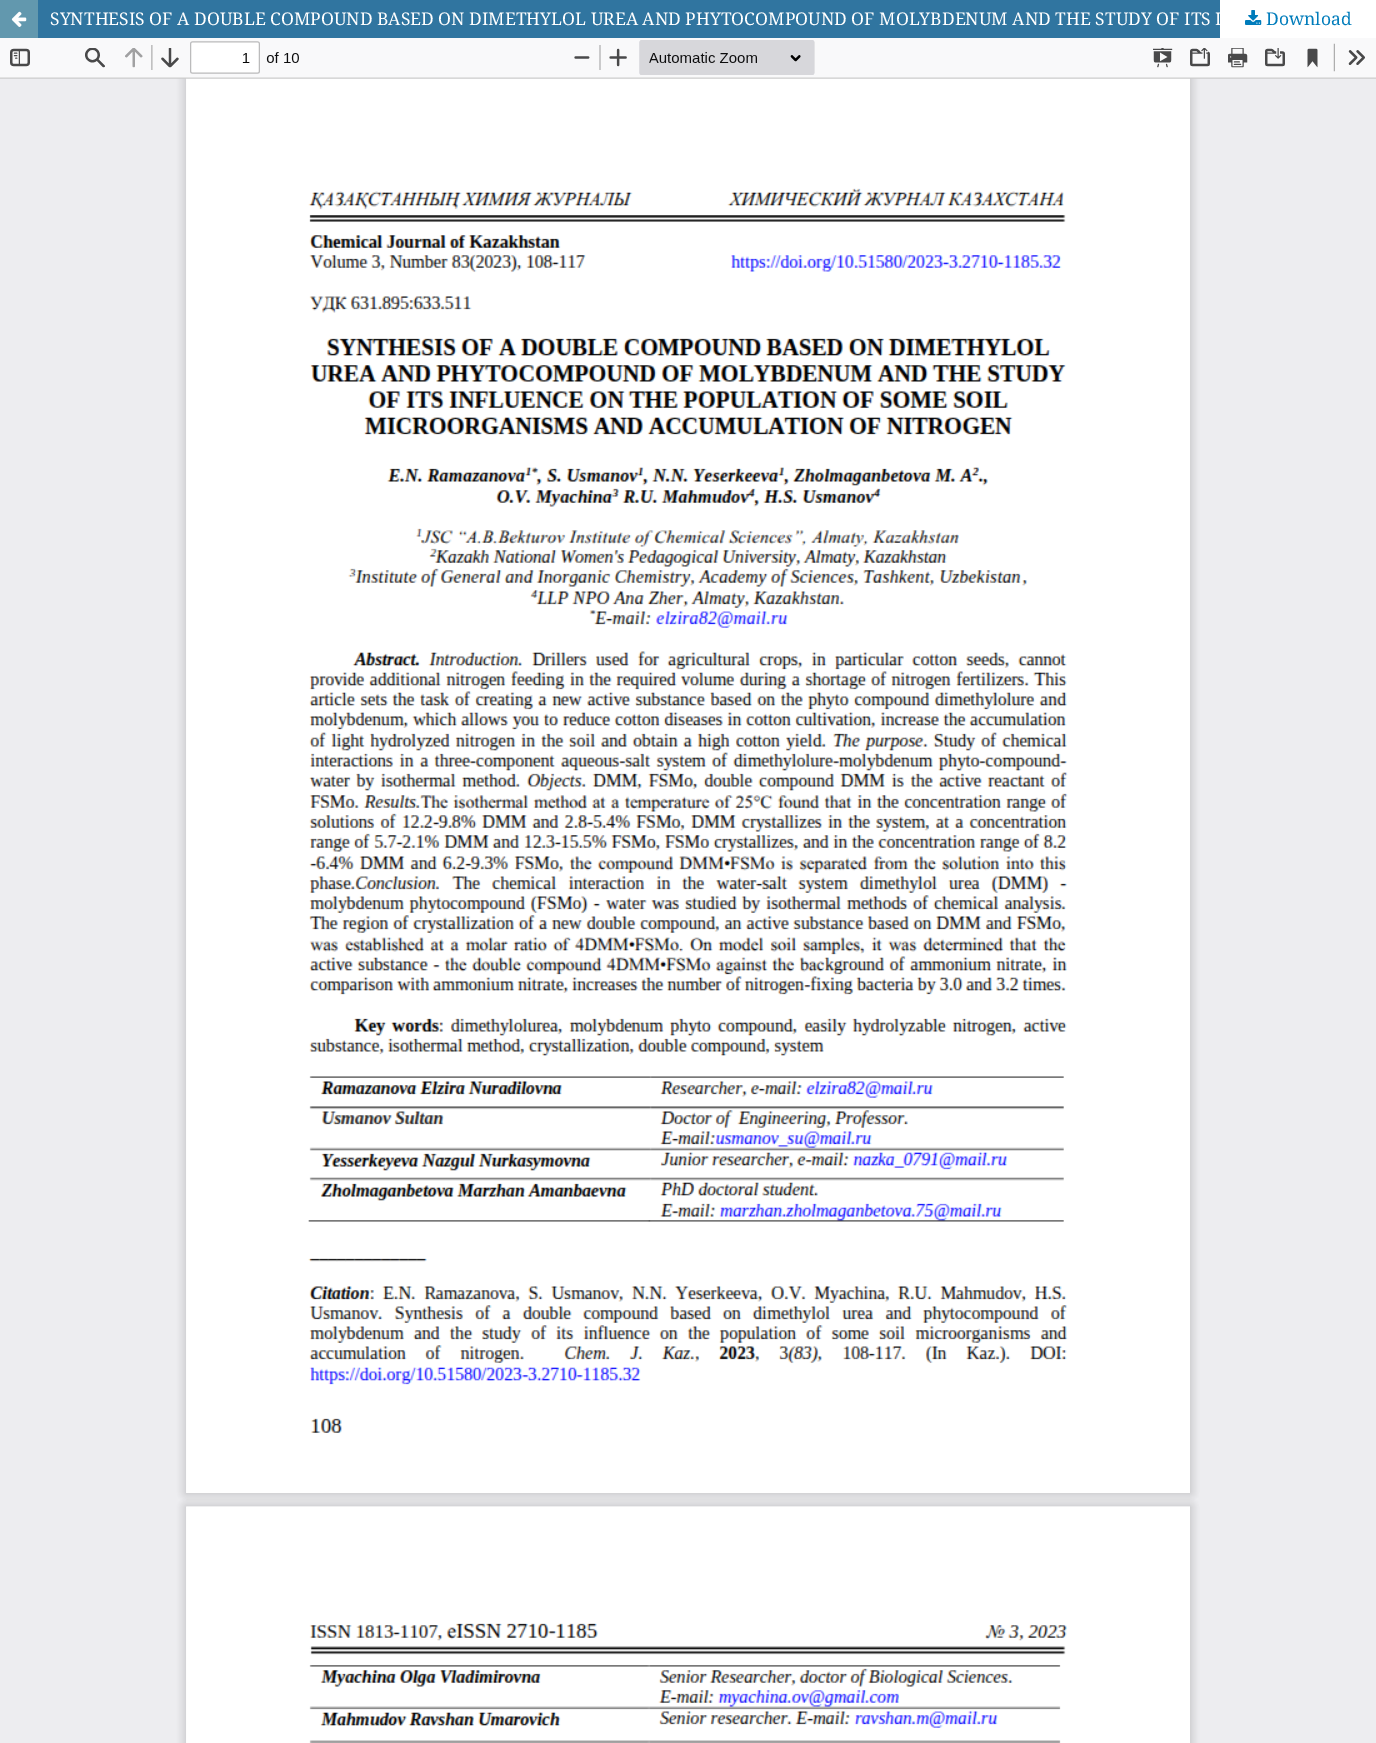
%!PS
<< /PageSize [1376 1743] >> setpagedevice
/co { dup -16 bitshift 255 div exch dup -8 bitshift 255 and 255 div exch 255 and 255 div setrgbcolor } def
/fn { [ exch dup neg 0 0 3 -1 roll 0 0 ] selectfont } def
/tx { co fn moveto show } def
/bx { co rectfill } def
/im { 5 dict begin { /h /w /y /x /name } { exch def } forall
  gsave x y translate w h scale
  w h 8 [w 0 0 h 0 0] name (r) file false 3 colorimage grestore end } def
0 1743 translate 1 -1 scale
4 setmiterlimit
0 0 1376 1743 16#FFFFFF bx
38 0 1182 38 16#3075A0 bx
0 0 38 38 16#6298AE bx
(media/1.raw) 11 11 16 16 im
(media/2.raw) 1245 10 17 15 im
(media/3.raw) 0 38 1376 1705 im
(SYNTHESIS OF A DOUBLE COMPOUND BASED ON DIMETHYLOL UREA AND PHYTOCOMPOUND OF MOLYBDENUM AND THE STUDY OF ITS I) 50 25 /NotoSerif-Regular 17.5 16#FFFFFF tx
(Download) 1266 25 /NotoSerif-Regular 17.5 16#007CBB tx
showpage
